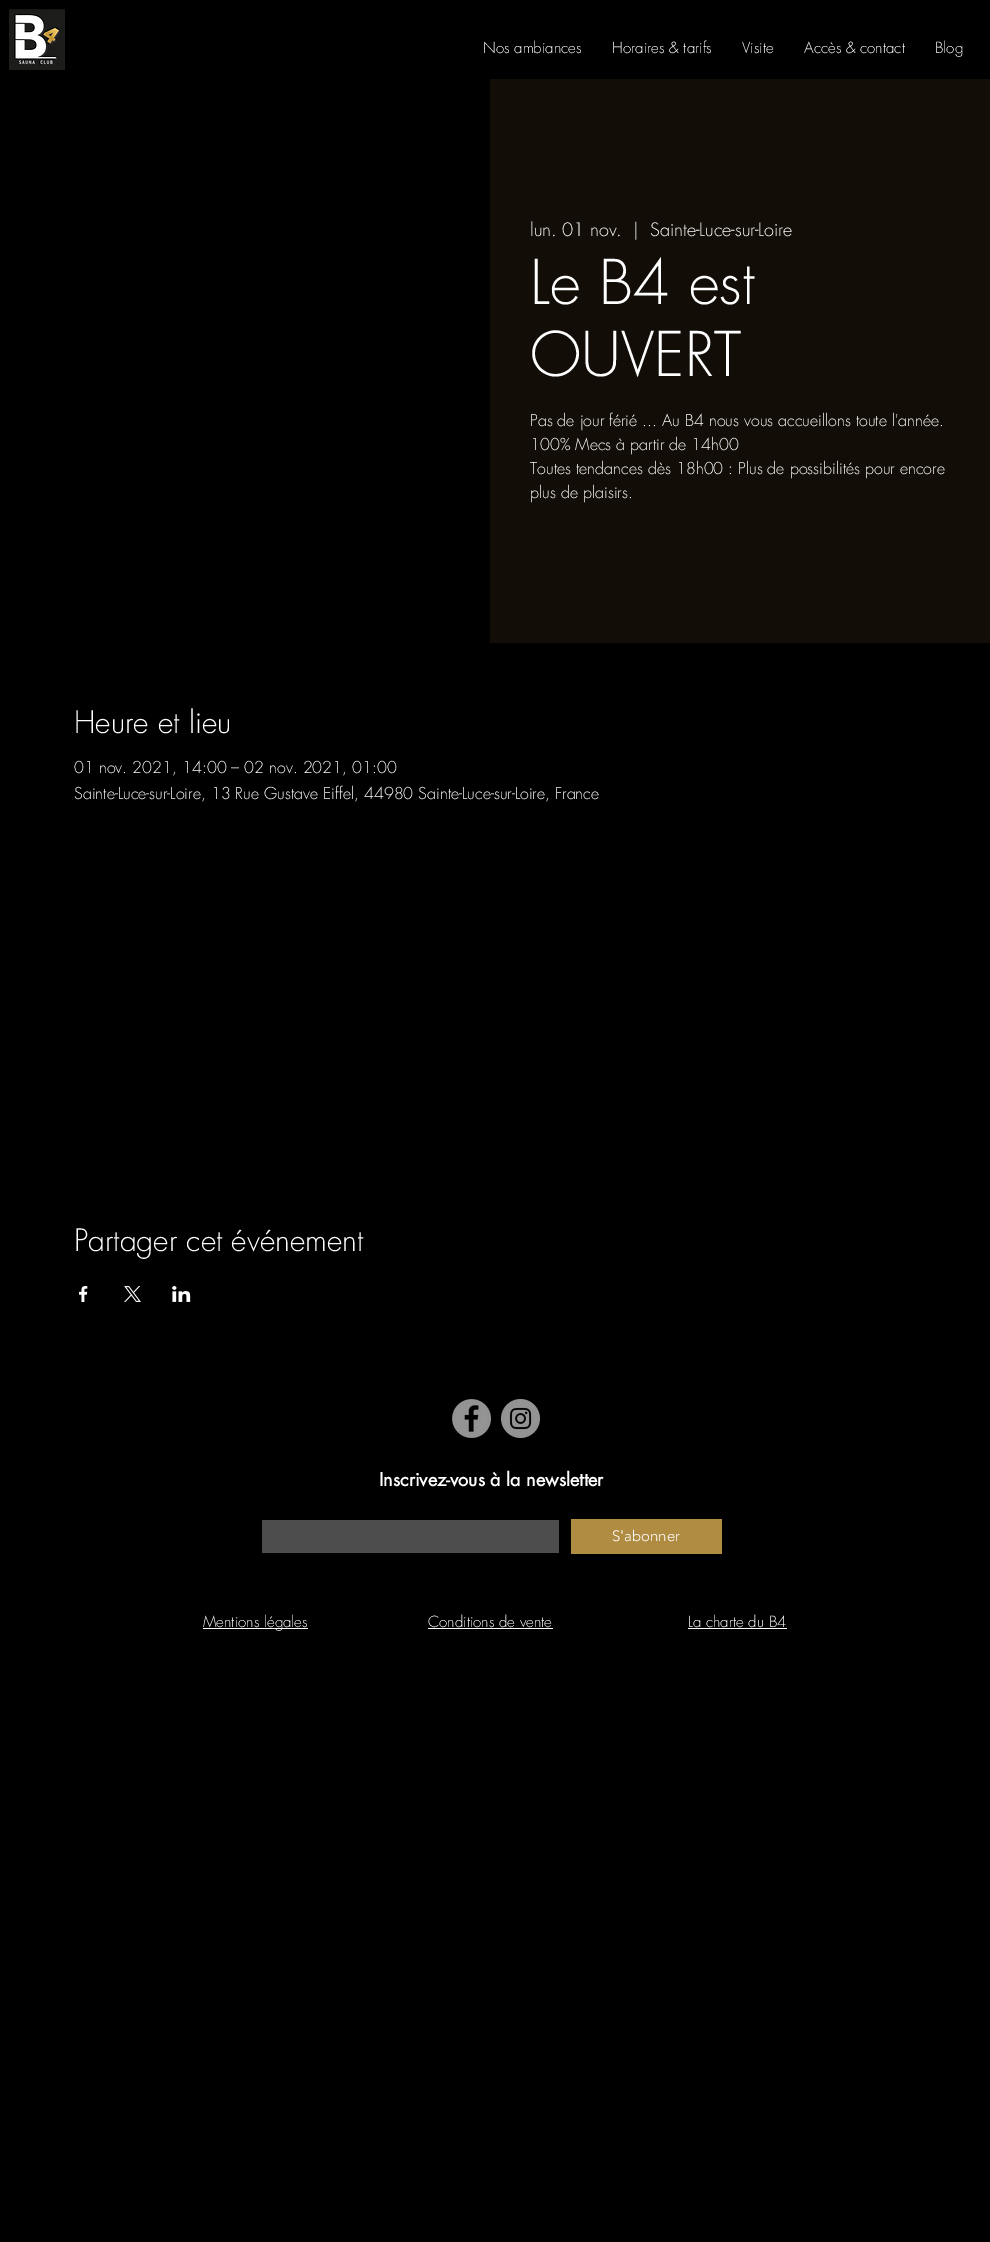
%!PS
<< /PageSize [990 2242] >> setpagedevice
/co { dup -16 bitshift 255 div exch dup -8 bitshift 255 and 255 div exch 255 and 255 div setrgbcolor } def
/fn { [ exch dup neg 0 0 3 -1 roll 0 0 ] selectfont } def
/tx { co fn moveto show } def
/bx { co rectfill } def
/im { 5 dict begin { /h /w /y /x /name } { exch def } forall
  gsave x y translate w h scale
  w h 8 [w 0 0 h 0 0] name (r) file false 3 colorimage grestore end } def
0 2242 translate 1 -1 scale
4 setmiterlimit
0 0 990 2242 16#000000 bx
(media/1.raw) 9 9 56 61 im
490 79 500 564 16#120E07 bx
(media/2.raw) 79 1286 9 16 im
(media/3.raw) 124 1286 17 16 im
(media/4.raw) 172 1286 19 16 im
(media/5.raw) 452 1399 39 39 im
(media/6.raw) 501 1399 39 39 im
262 1520 297 33 16#4D4D4D bx
571 1519 151 35 16#B08C43 bx
203 1628 105 1 16#FFFFFF bx
428 1628 125 1 16#FFFFFF bx
688 1628 99 1 16#FFFFFF bx
(Nos ambiances) 483 53 /futura-Light 15 16#FFFFFF tx
(Horaires & tarifs) 612 53 /futura-Light 15 16#FFFFFF tx
(Visite) 742 53 /futura-Light 15 16#FFFFFF tx
(Accès & contact) 804 53 /futura-Light 15 16#FFFFFF tx
(Blog) 935 53 /futura-Light 15 16#FFFFFF tx
(lun. 01 nov.) 530 236 /futura-Light 18 16#FFFFFF tx
(|) 633 236 /futura-Light 18 16#FFFFFF tx
(Sainte-Luce-sur-Loire) 650 236 /futura-Light 18 16#FFFFFF tx
(Le B4 est) 530 304 /futura-Light 60 16#FFFFFF tx
(OUVERT) 530 376 /futura-Light 60 16#FFFFFF tx
(Pas de jour férié ... Au B4 nous vous accueillons toute l'année.) 530 426 /futura-Light 16 16#FFFFFF tx
(100% Mecs à partir de 14h00) 530 450 /futura-Light 16 16#FFFFFF tx
(Toutes tendances dès 18h00 : Plus de possibilités pour encore) 530 474 /futura-Light 16 16#FFFFFF tx
(plus de plaisirs.) 530 498 /futura-Light 16 16#FFFFFF tx
(Heure et lieu) 74 733 /futura-Light 30 16#FFFFFF tx
(01 nov. 2021, 14:00 – 02 nov. 2021, 01:00) 74 773 /futura-Light 16 16#FFFFFF tx
(Sainte-Luce-sur-Loire, 13 Rue Gustave Eiffel, 44980 Sainte-Luce-sur-Loire, France) 74 799 /futura-Light 16 16#FFFFFF tx
(Partager cet événement) 74 1251 /futura-Light 30 16#FFFFFF tx
(Inscrivez-vous à la newsletter) 379 1486 /futura-Bold 18 16#FFFFFF tx
(S'abonner) 612 1541 /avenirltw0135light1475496-Light 15 16#FFFFFF tx
(Mentions légales) 203 1627 /futura-Light 15 16#FFFFFF tx
(Conditions de vente) 428 1627 /futura-Light 15 16#FFFFFF tx
(La charte du B4) 688 1627 /futura-Light 15 16#FFFFFF tx
showpage
